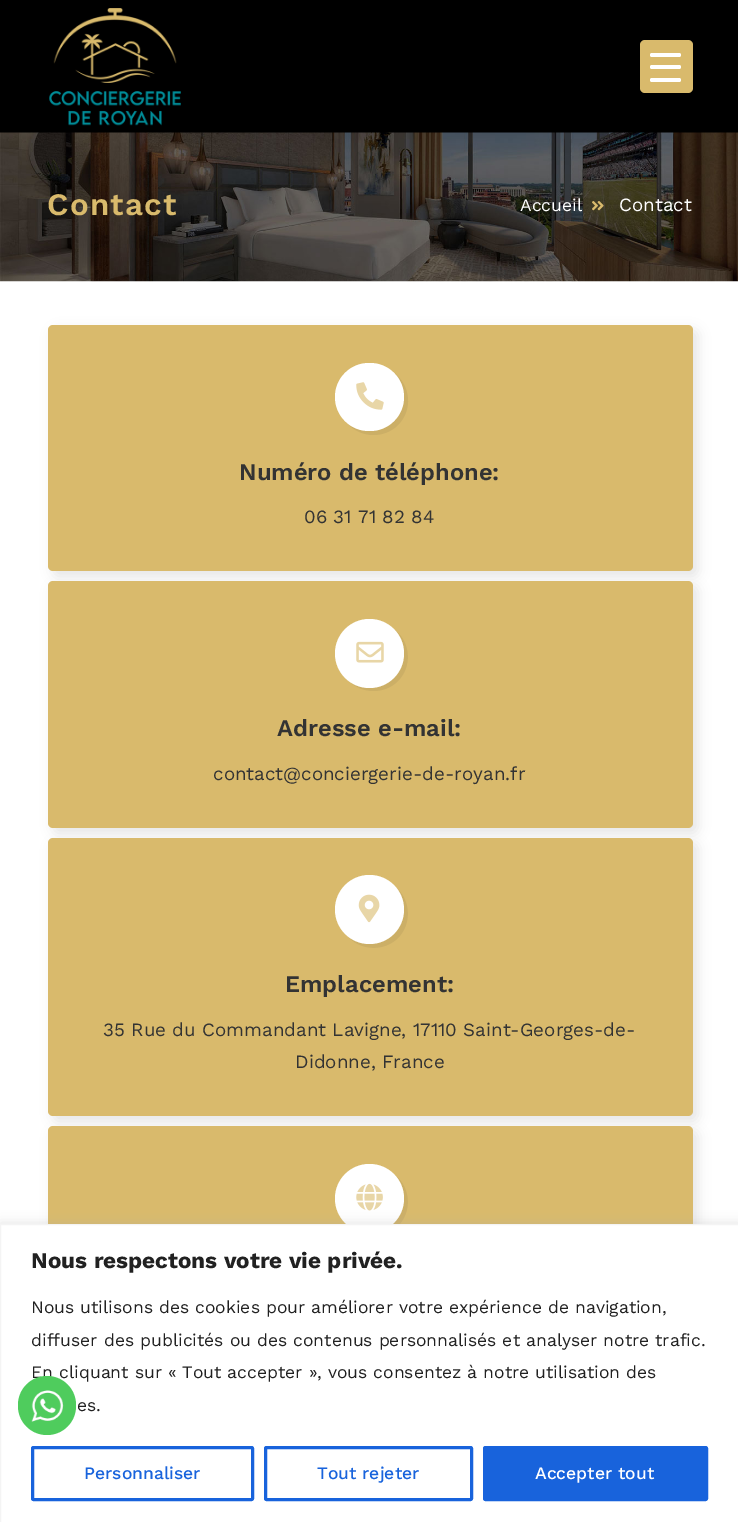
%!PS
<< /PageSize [738 1522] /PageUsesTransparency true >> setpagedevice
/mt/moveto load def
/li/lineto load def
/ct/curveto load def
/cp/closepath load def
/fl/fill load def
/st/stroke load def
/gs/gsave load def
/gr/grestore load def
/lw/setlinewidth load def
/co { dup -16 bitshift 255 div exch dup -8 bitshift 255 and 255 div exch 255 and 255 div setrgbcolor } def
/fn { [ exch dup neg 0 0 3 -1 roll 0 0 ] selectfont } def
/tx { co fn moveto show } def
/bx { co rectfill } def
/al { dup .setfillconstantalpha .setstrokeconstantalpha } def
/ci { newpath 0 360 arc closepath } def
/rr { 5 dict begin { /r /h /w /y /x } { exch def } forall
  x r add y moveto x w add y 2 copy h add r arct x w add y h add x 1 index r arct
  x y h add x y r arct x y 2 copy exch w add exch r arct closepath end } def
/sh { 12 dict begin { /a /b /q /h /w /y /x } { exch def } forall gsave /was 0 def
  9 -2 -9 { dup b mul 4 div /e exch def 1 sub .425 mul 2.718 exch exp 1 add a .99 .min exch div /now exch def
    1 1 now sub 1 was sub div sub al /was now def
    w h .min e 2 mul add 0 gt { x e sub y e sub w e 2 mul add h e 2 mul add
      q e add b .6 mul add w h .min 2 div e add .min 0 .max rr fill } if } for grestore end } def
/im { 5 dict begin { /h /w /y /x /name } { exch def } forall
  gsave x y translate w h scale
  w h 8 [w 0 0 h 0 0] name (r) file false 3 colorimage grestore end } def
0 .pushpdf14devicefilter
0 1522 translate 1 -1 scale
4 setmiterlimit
0 0 738 1522 16#FFFFFF bx
0 0 738 133 16#000000 bx
(media/1.raw) 49 8 132 118 im
16#D9BA6C co
640 40 53 53 5 rr fl
16#FFFFFF co
650 65 31 4 2 rr fl
650 53 31 4 2 rr fl
650 78 31 4 2 rr fl
(media/2.raw) 0 132 738 150 im
(media/3.raw) 592 201 12 10 im
16#000000 co
53 330 645 246 5 6 .1 sh
16#D9BA6C co
48 325 645 246 5 rr fl
16#CCAF66 co
348 424 mt 361 438 384 439 398 425 ct 413 410 411 385 393 372 ct 407 386 407 408 394 421 ct 381 433 362 434 348 424 ct cp fl
16#FFFFFF co
335 363 69 68 34 rr fl
(media/4.raw) 356 382 28 28 im
16#000000 co
53 586 645 247 5 6 .1 sh
16#D9BA6C co
48 581 645 247 5 rr fl
16#CCAF66 co
348 680 mt 361 694 384 695 398 681 ct 412 667 411 643 395 630 ct 423 661 380 706 348 680 ct cp fl
16#FFFFFF co
369.5 653.5 34.5 ci fl
(media/5.raw) 356 641 28 22 im
16#000000 co
53 843 645 278 5 6 .1 sh
16#D9BA6C co
48 838 645 278 5 rr fl
16#CCAF66 co
347 935 mt 359 951 384 952 398 938 ct 412 924 411 899 395 887 ct 407 900 406 921 394 934 ct 381 946 360 947 347 935 ct cp fl
16#FFFFFF co
369.5 909.5 34.5 ci fl
(media/6.raw) 358 894 22 29 im
16#000000 co
53 1131 645 247 5 6 .1 sh
16#D9BA6C co
48 1126 645 247 5 rr fl
16#CCAF66 co
348 1225 mt 361 1239 384 1240 398 1226 ct 412 1212 411 1188 395 1175 ct 423 1206 380 1251 348 1225 ct cp fl
16#FFFFFF co
369.5 1198.5 34.5 ci fl
(media/7.raw) 356 1183 27 28 im
16#ACABAB co
0 1223 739 298 0 6 .3 sh
16#FFFFFF co
.5 1224.5 mt 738.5 1224.5 li 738.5 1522.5 li .5 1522.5 li cp gs fl gr
16#F4F4F4 co
st
16#1863DC co
3 lw
32.5 1447.5 220 52 1 rr st
265.5 1447.5 206 52 1 rr st
484.5 1447.5 222 52 1 rr gs fl gr
st
/WorkSans-SemiBold 31.25 fn
16#D9BA6C co
47 215 mt 1.25 0 (Contact) ashow
(Accueil) 520 211 /WorkSans-Regular 17.5 16#FFFFFF tx
(Contact) 619 211 /WorkSans-Regular 18.75 16#FFFFFF tx
(Numéro de téléphone:) 239 480 /WorkSans-SemiBold 23.75 16#333333 tx
(06 31 71 82 84) 304 523 /WorkSans-Regular 18.75 16#333333 tx
(Adresse e-mail:) 277 736 /WorkSans-SemiBold 23.75 16#333333 tx
(contact@conciergerie-de-royan.fr) 213 780 /WorkSans-Regular 18.75 16#333333 tx
(Emplacement:) 285 992 /WorkSans-SemiBold 23.75 16#333333 tx
(35 Rue du Commandant Lavigne, 17110 Saint-Georges-de-) 103 1036 /WorkSans-Regular 18.75 16#333333 tx
(Didonne, France) 295 1068 /WorkSans-Regular 18.75 16#333333 tx
(Nous respectons votre vie privée.) 31 1268 /WorkSans-Bold 22.5 16#212121 tx
(Nous utilisons des cookies pour améliorer votre expérience de navigation,) 31 1313 /WorkSans-Regular 17.5 16#212121 tx
(diffuser des publicités ou des contenus personnalisés et analyser notre trafic.) 31 1346 /WorkSans-Regular 17.5 16#212121 tx
(En cliquant sur « Tout accepter », vous consentez à notre utilisation des) 31 1378 /WorkSans-Regular 17.5 16#212121 tx
(es.) 77 1411 /WorkSans-Regular 17.5 16#212121 tx
(Personnaliser) 84 1479 /WorkSans-Medium 17.5 16#1863DC tx
(Tout rejeter) 317 1479 /WorkSans-Medium 17.5 16#1863DC tx
(Accepter tout) 535 1479 /WorkSans-Medium 17.5 16#FFFFFF tx
16#4FCC5D co
18 1376 58 59 29 rr fl
(media/8.raw) 31 1390 33 32 im
.poppdf14devicefilter showpage
